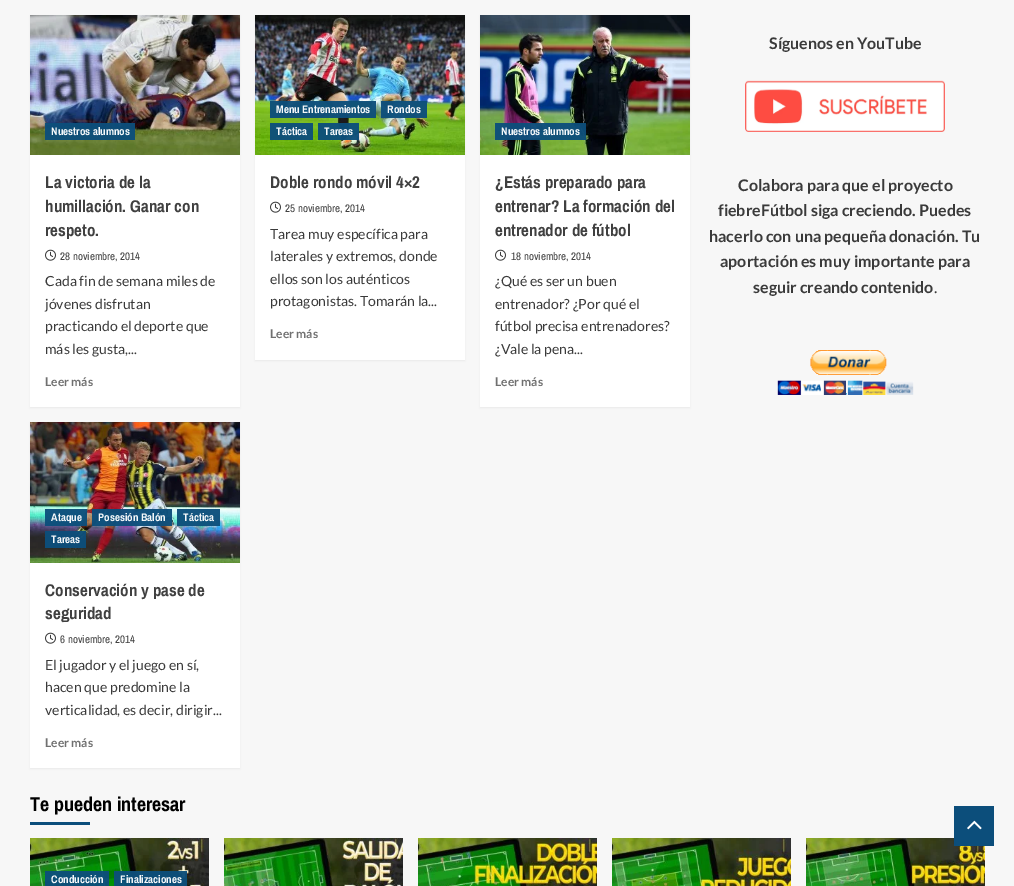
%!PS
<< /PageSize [1014 886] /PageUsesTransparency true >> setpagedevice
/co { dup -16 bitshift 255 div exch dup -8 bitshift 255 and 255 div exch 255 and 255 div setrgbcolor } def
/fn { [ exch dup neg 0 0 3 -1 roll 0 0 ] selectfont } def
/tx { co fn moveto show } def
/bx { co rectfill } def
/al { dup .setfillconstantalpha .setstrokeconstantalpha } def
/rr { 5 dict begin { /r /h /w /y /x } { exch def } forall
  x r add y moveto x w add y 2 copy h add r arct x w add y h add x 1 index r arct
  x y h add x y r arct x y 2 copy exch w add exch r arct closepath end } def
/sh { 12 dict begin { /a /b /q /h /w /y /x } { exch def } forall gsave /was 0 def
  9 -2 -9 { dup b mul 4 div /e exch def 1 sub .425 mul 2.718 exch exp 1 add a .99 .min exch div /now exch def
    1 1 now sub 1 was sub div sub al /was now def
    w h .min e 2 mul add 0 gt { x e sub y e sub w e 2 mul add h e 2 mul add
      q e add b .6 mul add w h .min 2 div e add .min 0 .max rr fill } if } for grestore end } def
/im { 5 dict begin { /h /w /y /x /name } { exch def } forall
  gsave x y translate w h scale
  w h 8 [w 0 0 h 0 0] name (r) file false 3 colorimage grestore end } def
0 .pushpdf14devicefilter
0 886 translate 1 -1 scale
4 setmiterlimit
0 0 1014 886 16#F7F7F7 bx
16#000000 co
30 16 210 392 0 1 .05 sh
30 155 210 252 16#FFFFFF bx
(media/1.raw) 30 15 210 140 im
0.96 al
45 123 90 17 16#0C4E7B bx
1 al
(media/2.raw) 45 249 11 12 im
16#000000 co
255 16 210 345 0 1 .05 sh
255 155 210 205 16#FFFFFF bx
(media/3.raw) 255 15 210 140 im
0.96 al
270 101 106 17 16#0C4E7B bx
381 101 46 17 16#0C4E7B bx
270 123 43 17 16#0C4E7B bx
318 123 41 17 16#0C4E7B bx
1 al
(media/2.raw) 270 201 11 12 im
16#000000 co
480 16 210 392 0 1 .05 sh
480 155 210 252 16#FFFFFF bx
(media/4.raw) 480 15 210 140 im
0.96 al
495 123 91 17 16#0C4E7B bx
1 al
(media/2.raw) 495 249 11 12 im
16#000000 co
30 423 210 346 0 1 .05 sh
30 563 210 205 16#FFFFFF bx
(media/5.raw) 30 422 210 141 im
0.96 al
45 509 42 17 16#0C4E7B bx
92 509 80 17 16#0C4E7B bx
177 509 43 17 16#0C4E7B bx
45 531 41 17 16#0C4E7B bx
1 al
(media/2.raw) 45 632 11 12 im
(media/6.raw) 745 80 200 52 im
(media/7.raw) 777 350 137 45 im
30 822 60 3 16#0C4E7B bx
(media/8.raw) 30 838 179 48 im
0.96 al
45 871 64 15 16#0C4E7B bx
114 871 73 15 16#0C4E7B bx
1 al
(media/9.raw) 224 838 179 48 im
(media/10.raw) 418 838 179 48 im
(media/11.raw) 612 838 179 48 im
(media/12.raw) 806 838 179 48 im
954 806 40 40 16#0C4E7B bx
(media/13.raw) 967 820 15 10 im
(Nuestros alumnos) 51 135 /ArchivoNarrow-Bold 11 16#F5F8FA tx
(La victoria de la) 45 188 /ArchivoNarrow-Bold 17 16#404040 tx
(humillación. Ganar con) 45 212 /ArchivoNarrow-Bold 17 16#404040 tx
(respeto.) 45 236 /ArchivoNarrow-Bold 17 16#404040 tx
(28 noviembre, 2014) 60 260 /ArchivoNarrow-Regular 11 16#404040 tx
(Cada fin de semana miles de) 45 286 /Lato-Regular 14 16#3A3A3A tx
(jóvenes disfrutan) 45 309 /Lato-Regular 14 16#3A3A3A tx
(practicando el deporte que) 45 331 /Lato-Regular 14 16#3A3A3A tx
(más les gusta,...) 45 354 /Lato-Regular 14 16#3A3A3A tx
(Leer más) 45 386 /Lato-Bold 12 16#707070 tx
(Menu Entrenamientos) 276 113 /ArchivoNarrow-Bold 11 16#F5F8FA tx
(Rondos) 387 113 /ArchivoNarrow-Bold 11 16#F5F8FA tx
(Táctica) 276 135 /ArchivoNarrow-Bold 11 16#F5F8FA tx
(Tareas) 324 135 /ArchivoNarrow-Bold 11 16#F5F8FA tx
(Doble rondo móvil 4×2) 270 188 /ArchivoNarrow-Bold 17 16#404040 tx
(25 noviembre, 2014) 285 212 /ArchivoNarrow-Regular 11 16#404040 tx
(Tarea muy específica para) 270 239 /Lato-Regular 14 16#3A3A3A tx
(laterales y extremos, donde) 270 261 /Lato-Regular 14 16#3A3A3A tx
(ellos son los auténticos) 270 284 /Lato-Regular 14 16#3A3A3A tx
(protagonistas. Tomarán la...) 270 306 /Lato-Regular 14 16#3A3A3A tx
(Leer más) 270 338 /Lato-Bold 12 16#707070 tx
(Nuestros alumnos) 501 135 /ArchivoNarrow-Bold 11 16#F5F8FA tx
(¿Estás preparado para) 495 188 /ArchivoNarrow-Bold 17 16#404040 tx
(entrenar? La formación del) 495 212 /ArchivoNarrow-Bold 17 16#404040 tx
(entrenador de fútbol) 495 236 /ArchivoNarrow-Bold 17 16#404040 tx
(18 noviembre, 2014) 511 260 /ArchivoNarrow-Regular 11 16#404040 tx
(¿Qué es ser un buen) 495 286 /Lato-Regular 14 16#3A3A3A tx
(entrenador? ¿Por qué el) 495 309 /Lato-Regular 14 16#3A3A3A tx
(fútbol precisa entrenadores?) 495 331 /Lato-Regular 14 16#3A3A3A tx
(¿Vale la pena...) 495 354 /Lato-Regular 14 16#3A3A3A tx
(Leer más) 495 386 /Lato-Bold 12 16#707070 tx
(Ataque) 51 521 /ArchivoNarrow-Bold 11 16#F5F8FA tx
(Posesión Balón) 98 521 /ArchivoNarrow-Bold 11 16#F5F8FA tx
(Táctica) 183 521 /ArchivoNarrow-Bold 11 16#F5F8FA tx
(Tareas) 51 543 /ArchivoNarrow-Bold 11 16#F5F8FA tx
(Conservación y pase de) 45 596 /ArchivoNarrow-Bold 17 16#404040 tx
(seguridad) 45 619 /ArchivoNarrow-Bold 17 16#404040 tx
(6 noviembre, 2014) 60 643 /ArchivoNarrow-Regular 11 16#404040 tx
(El jugador y el juego en sí,) 45 670 /Lato-Regular 14 16#3A3A3A tx
(hacen que predomine la) 45 692 /Lato-Regular 14 16#3A3A3A tx
(verticalidad, es decir, dirigir...) 45 715 /Lato-Regular 14 16#3A3A3A tx
(Leer más) 45 747 /Lato-Bold 12 16#707070 tx
(Síguenos en YouTube) 769 49 /Lato-Bold 16 16#3A3A3A tx
(Colabora para que el proyecto) 738 191 /Lato-Bold 16 16#3A3A3A tx
(fiebreFútbol siga creciendo. Puedes) 718 216 /Lato-Bold 16 16#3A3A3A tx
(hacerlo con una pequeña donación. Tu) 709 242 /Lato-Bold 16 16#3A3A3A tx
(aportación es muy importante para) 720 267 /Lato-Bold 16 16#3A3A3A tx
(seguir creando contenido) 753 293 /Lato-Bold 16 16#3A3A3A tx
(.) 934 293 /Lato-Regular 16 16#3A3A3A tx
(Te pueden interesar) 30 811 /ArchivoNarrow-Bold 20 16#000000 tx
(Conducción) 51 883 /ArchivoNarrow-Bold 11 16#F5F8FA tx
(Finalizaciones) 120 883 /ArchivoNarrow-Bold 11 16#F5F8FA tx
.poppdf14devicefilter showpage
